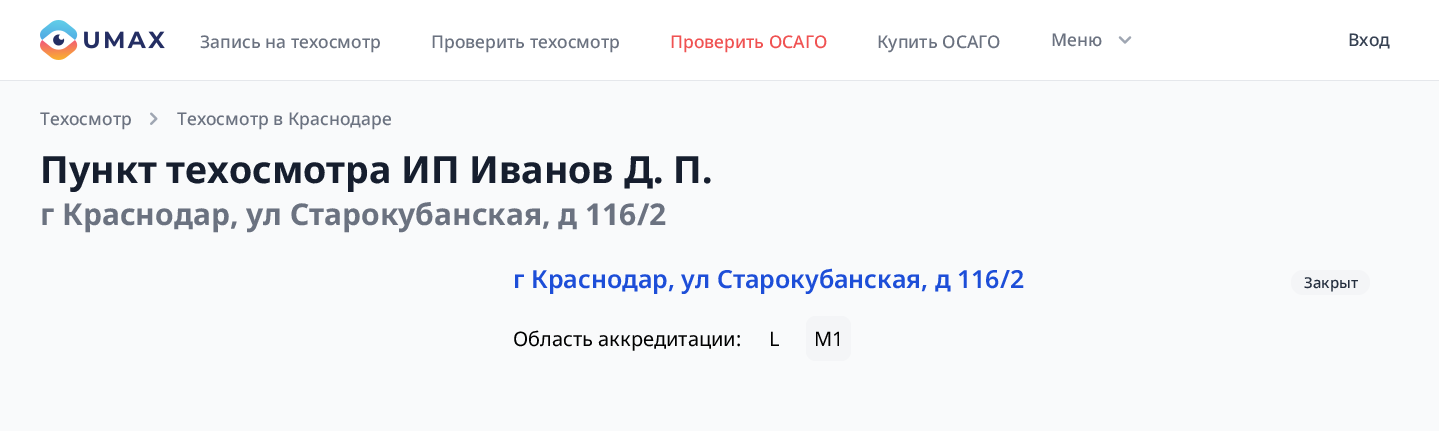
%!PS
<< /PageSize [1439 431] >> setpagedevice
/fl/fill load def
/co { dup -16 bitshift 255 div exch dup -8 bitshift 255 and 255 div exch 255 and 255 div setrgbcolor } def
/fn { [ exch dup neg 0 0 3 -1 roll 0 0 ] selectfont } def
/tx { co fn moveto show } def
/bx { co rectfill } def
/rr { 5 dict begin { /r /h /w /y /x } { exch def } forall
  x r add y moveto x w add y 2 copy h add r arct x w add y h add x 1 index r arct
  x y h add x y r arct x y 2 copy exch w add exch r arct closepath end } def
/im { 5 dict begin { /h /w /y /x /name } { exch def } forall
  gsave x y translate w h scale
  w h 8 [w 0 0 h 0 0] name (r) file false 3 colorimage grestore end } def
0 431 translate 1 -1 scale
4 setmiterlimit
0 0 1439 431 16#F9FAFB bx
0 0 1439 80 16#FFFFFF bx
0 80 1439 1 16#E5E7EB bx
(media/1.raw) 40 20 125 40 im
(media/2.raw) 1118 36 14 8 im
(media/3.raw) 150 112 8 13 im
16#F4F5F7 co
1291 270 79 25 12.5 rr fl
806 316 45 45 10 rr fl
(Запись на техосмотр) 200 48 /NotoSans-Medium 17.5 16#6B7280 tx
(Проверить техосмотр) 431 48 /NotoSans-Medium 17.5 16#6B7280 tx
(Проверить ОСАГО) 670 48 /NotoSans-Medium 17.5 16#F05252 tx
(Купить ОСАГО) 877 48 /NotoSans-Medium 17.5 16#6B7280 tx
(Меню) 1051 46 /NotoSans-Medium 17.5 16#6B7280 tx
(Вход) 1348 46 /NotoSans-Medium 17.5 16#364152 tx
(Техосмотр) 40 125 /NotoSans-Medium 17.5 16#6B7280 tx
(Техосмотр в Краснодаре) 177 125 /NotoSans-Medium 17.5 16#6B7280 tx
(Пункт техосмотра ИП Иванов Д. П.) 40 183 /NotoSans-Bold 37.5 16#161E2E tx
(г Краснодар, ул Старокубанская, д 116/2) 40 225 /NotoSans-Bold 30 16#6B7280 tx
(г Краснодар, ул Старокубанская, д 116/2) 513 288 /NotoSans-SemiBold 25 16#1D4ED8 tx
(Закрыт) 1304 288 /NotoSans-Medium 15 16#252F3F tx
(Область аккредитации:) 513 346 /NotoSans-Regular 20 16#000000 tx
(L) 769 346 /NotoSans-Regular 20 16#000000 tx
(M1) 814 346 /NotoSans-Regular 20 16#000000 tx
showpage
